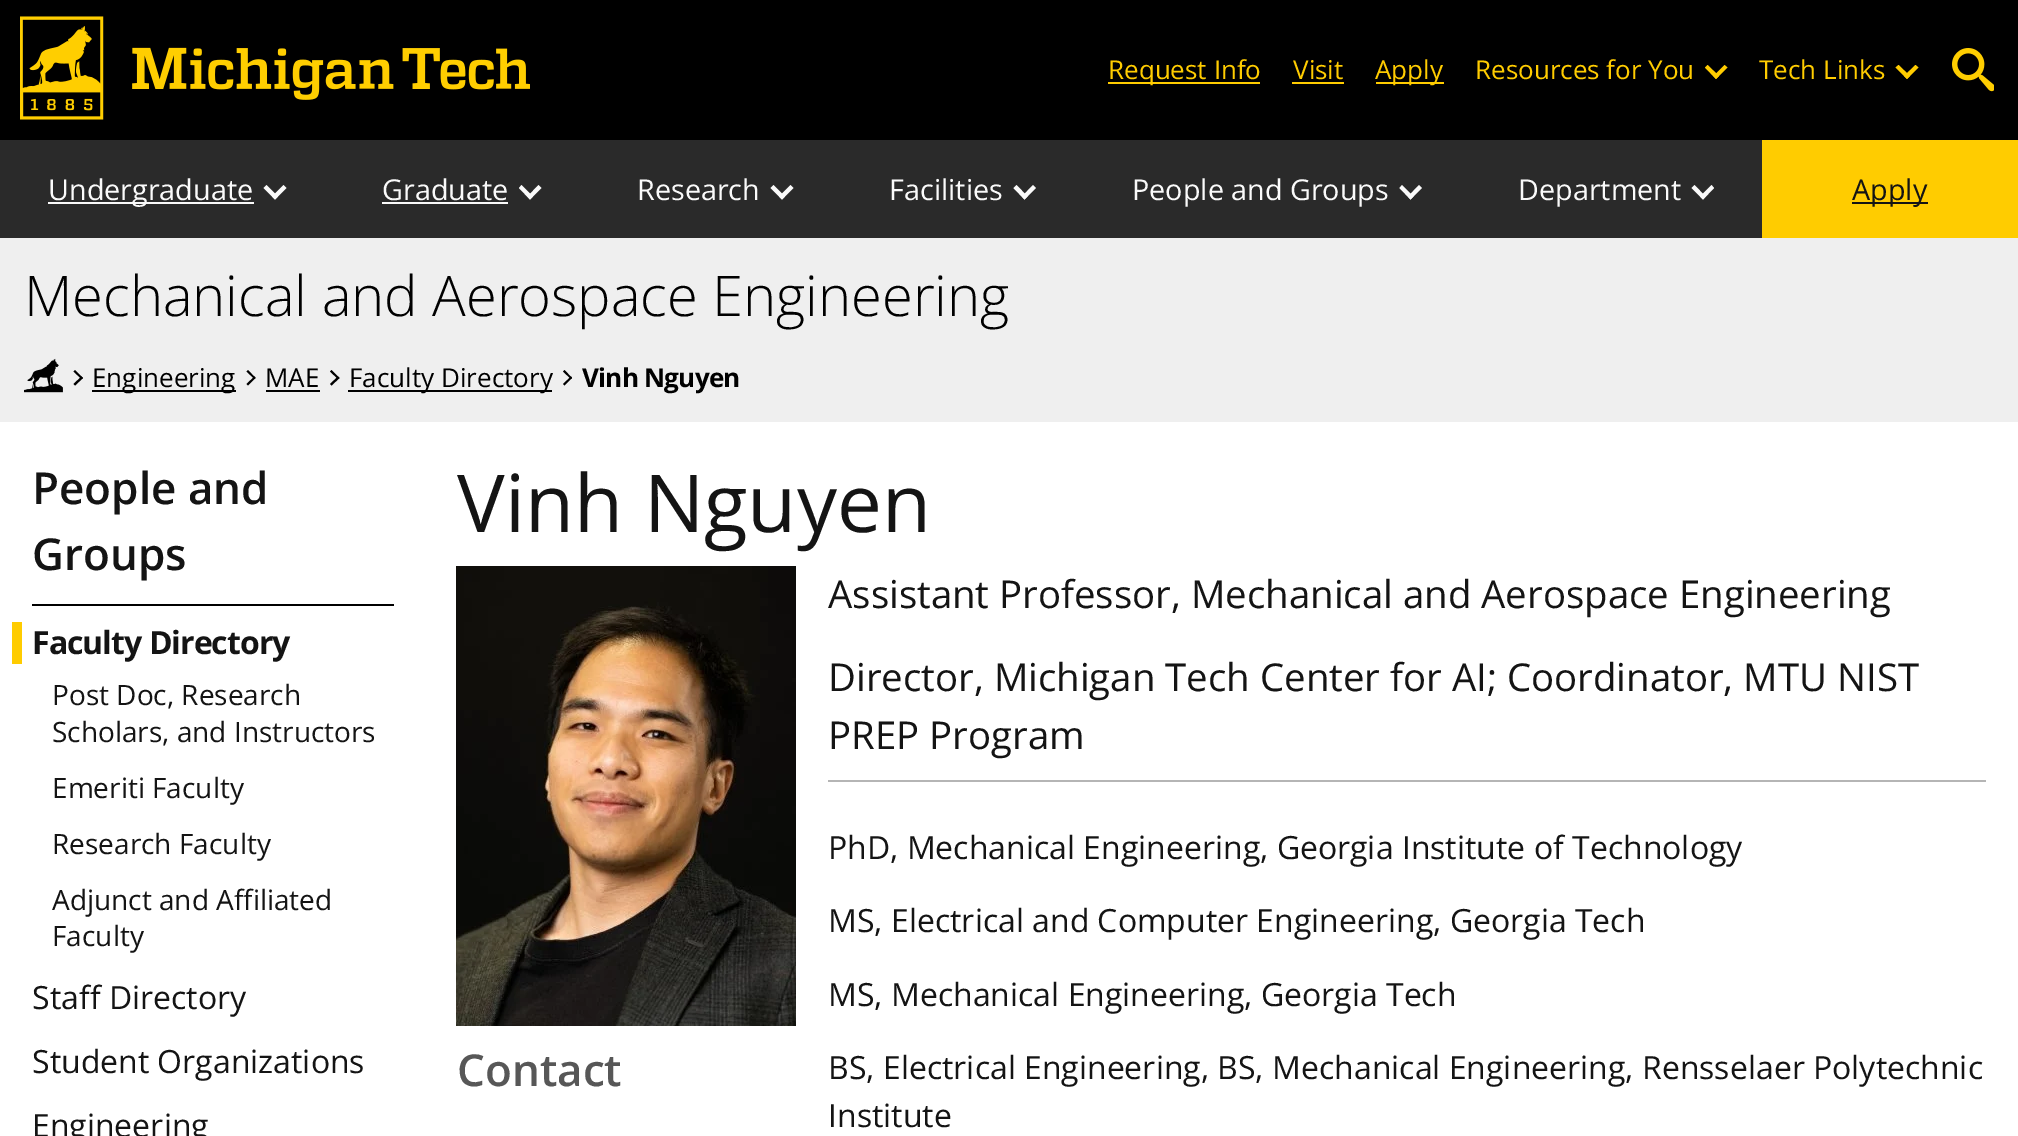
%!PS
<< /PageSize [2018 1136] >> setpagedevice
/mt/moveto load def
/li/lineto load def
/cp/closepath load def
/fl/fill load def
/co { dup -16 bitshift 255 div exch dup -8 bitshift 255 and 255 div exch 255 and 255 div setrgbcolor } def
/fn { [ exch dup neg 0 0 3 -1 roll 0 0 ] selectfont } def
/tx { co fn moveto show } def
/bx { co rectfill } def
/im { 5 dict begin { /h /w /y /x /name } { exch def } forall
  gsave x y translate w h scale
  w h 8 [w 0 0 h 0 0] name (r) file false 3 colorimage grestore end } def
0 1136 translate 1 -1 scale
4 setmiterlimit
0 0 2018 1136 16#FFFFFF bx
0 0 2018 140 16#000000 bx
(media/1.raw) 20 16 510 104 im
1108 82 152 2 16#FFCC00 bx
1292 82 52 2 16#FFCC00 bx
1376 82 68 2 16#FFCC00 bx
1724.5 65 mt 1727.5 67.5 li 1716 79 li 1713.5 76 li cp fl
1707.5 65 mt 1719 76 li 1716 79 li 1705 67.5 li cp fl
1915.5 65 mt 1918.5 67.5 li 1907 79 li 1904 76 li cp fl
1898.5 65 mt 1910 76 li 1907 79 li 1895.5 67.5 li cp fl
(media/2.raw) 1952 48 42 44 im
0 140 1762 98 16#2A2A2A bx
48 202 206 2 16#FAFAFA bx
283.5 185 mt 286.5 188 li 275 199.5 li 272 196.5 li cp fl
266.5 185 mt 278 196.5 li 275 199.5 li 263.5 188 li cp fl
382 202 126 2 16#FAFAFA bx
538.5 185 mt 541.5 188 li 530 199.5 li 527.5 196.5 li cp fl
521.5 185 mt 533 196.5 li 530 199.5 li 519 188 li cp fl
790.5 185 mt 793.5 188 li 782 199.5 li 779 196.5 li cp fl
773.5 185 mt 785 196.5 li 782 199.5 li 770.5 188 li cp fl
1033 185 mt 1036 188 li 1024.5 199.5 li 1022 196.5 li cp fl
1016.5 185 mt 1027.5 196.5 li 1024.5 199.5 li 1013.5 188 li cp fl
1419 185 mt 1422 188 li 1410.5 199.5 li 1408 196.5 li cp fl
1402 185 mt 1413.5 196.5 li 1410.5 199.5 li 1399.5 188 li cp fl
1711.5 185 mt 1714 188 li 1703 199.5 li 1700 196.5 li cp fl
1694.5 185 mt 1705.5 196.5 li 1703 199.5 li 1691.5 188 li cp fl
1762 140 256 98 16#FFCC00 bx
1852 202 76 2 16#141414 bx
0 238 2018 184 16#EFEFEF bx
(media/3.raw) 24 358 39 35 im
16#000000 co
75 370 mt 83 378 li 81.5 379 li 73.5 371.5 li cp fl
81.5 376.5 mt 83 378 li 75 385.5 li 73.5 384 li cp fl
92 390 144 2 16#000000 bx
248 370 mt 255.5 378 li 254.5 379 li 246.5 371.5 li cp fl
254.5 376.5 mt 255.5 378 li 248 385.5 li 246.5 384 li cp fl
266 390 54 2 16#000000 bx
331.5 370 mt 339.5 378 li 338 379 li 330 371.5 li cp fl
338 376.5 mt 339.5 378 li 331.5 385.5 li 330 384 li cp fl
348 390 204 2 16#000000 bx
564.5 370 mt 572 378 li 571 379 li 563 371.5 li cp fl
571 376.5 mt 572 378 li 564.5 385.5 li 563 384 li cp fl
32 604 362 2 16#000000 bx
12 622 10 42 16#FFCC00 bx
(media/4.raw) 456 566 340 460 im
828 780 1158 2 16#B5B5B5 bx
(Request Info) 1108 79 /OpenSans-Regular 26 16#FFCC00 tx
(Visit) 1293 79 /OpenSans-Regular 26 16#FFCC00 tx
(Apply) 1375 79 /OpenSans-Regular 26 16#FFCC00 tx
(Resources for You) 1475 79 /OpenSans-Regular 26 16#FFCC00 tx
(Tech Links) 1759 79 /OpenSans-Regular 26 16#FFCC00 tx
(Undergraduate) 48 200 /OpenSans-Regular 28.75 16#FAFAFA tx
(Graduate) 382 200 /OpenSans-Regular 28.75 16#FAFAFA tx
(Research) 637 200 /OpenSans-Regular 28.75 16#FAFAFA tx
(Facilities) 889 200 /OpenSans-Regular 28.75 16#FAFAFA tx
(People and Groups) 1132 200 /OpenSans-Regular 28.75 16#FAFAFA tx
(Department) 1518 200 /OpenSans-Regular 28.75 16#FAFAFA tx
(Apply) 1852 200 /OpenSans-Regular 28.75 16#141414 tx
(Mechanical and Aerospace Engineering) 24 316 /OpenSans-Light 56 16#000000 tx
(Engineering) 92 387 /OpenSans-Regular 26 16#000000 tx
(MAE) 265 387 /OpenSans-Regular 26 16#000000 tx
(Faculty Directory) 349 387 /OpenSans-Regular 26 16#000000 tx
/OpenSans-Bold 26 fn
582 387 mt -.75 0 (Vinh Nguyen) ashow
(People and) 32 504 /OpenSans-SemiBold 44 16#141414 tx
(Groups) 32 570 /OpenSans-SemiBold 44 16#141414 tx
/OpenSans-Bold 32 fn
32 654 mt -1 0 (Faculty Directory) ashow
(Post Doc, Research) 52 705 /OpenSans-Regular 28 16#141414 tx
(Scholars, and Instructors) 52 742 /OpenSans-Regular 28 16#141414 tx
(Emeriti Faculty) 52 798 /OpenSans-Regular 28 16#141414 tx
(Research Faculty) 52 854 /OpenSans-Regular 28 16#141414 tx
(Adjunct and Affiliated) 52 910 /OpenSans-Regular 28 16#141414 tx
(Faculty) 52 946 /OpenSans-Regular 28 16#141414 tx
(Staff Directory) 32 1009 /OpenSans-Regular 32 16#141414 tx
(Student Organizations) 32 1073 /OpenSans-Regular 32 16#141414 tx
(Engineering) 32 1137 /OpenSans-Regular 32 16#141414 tx
(Vinh Nguyen) 457 532 /OpenSans-Regular 80 16#141414 tx
(Contact) 457 1086 /OpenSans-SemiBold 44 16#575757 tx
(Assistant Professor, Mechanical and Aerospace Engineering) 828 608 /OpenSans-Regular 38.4 16#141414 tx
(Director, Michigan Tech Center for AI; Coordinator, MTU NIST) 828 691 /OpenSans-Regular 38.4 16#141414 tx
(PREP Program) 828 749 /OpenSans-Regular 38.4 16#141414 tx
(PhD, Mechanical Engineering, Georgia Institute of Technology) 828 859 /OpenSans-Regular 32 16#141414 tx
(MS, Electrical and Computer Engineering, Georgia Tech) 828 932 /OpenSans-Regular 32 16#141414 tx
(MS, Mechanical Engineering, Georgia Tech) 828 1006 /OpenSans-Regular 32 16#141414 tx
(BS, Electrical Engineering, BS, Mechanical Engineering, Rensselaer Polytechnic) 828 1079 /OpenSans-Regular 32 16#141414 tx
(Institute) 828 1127 /OpenSans-Regular 32 16#141414 tx
showpage
